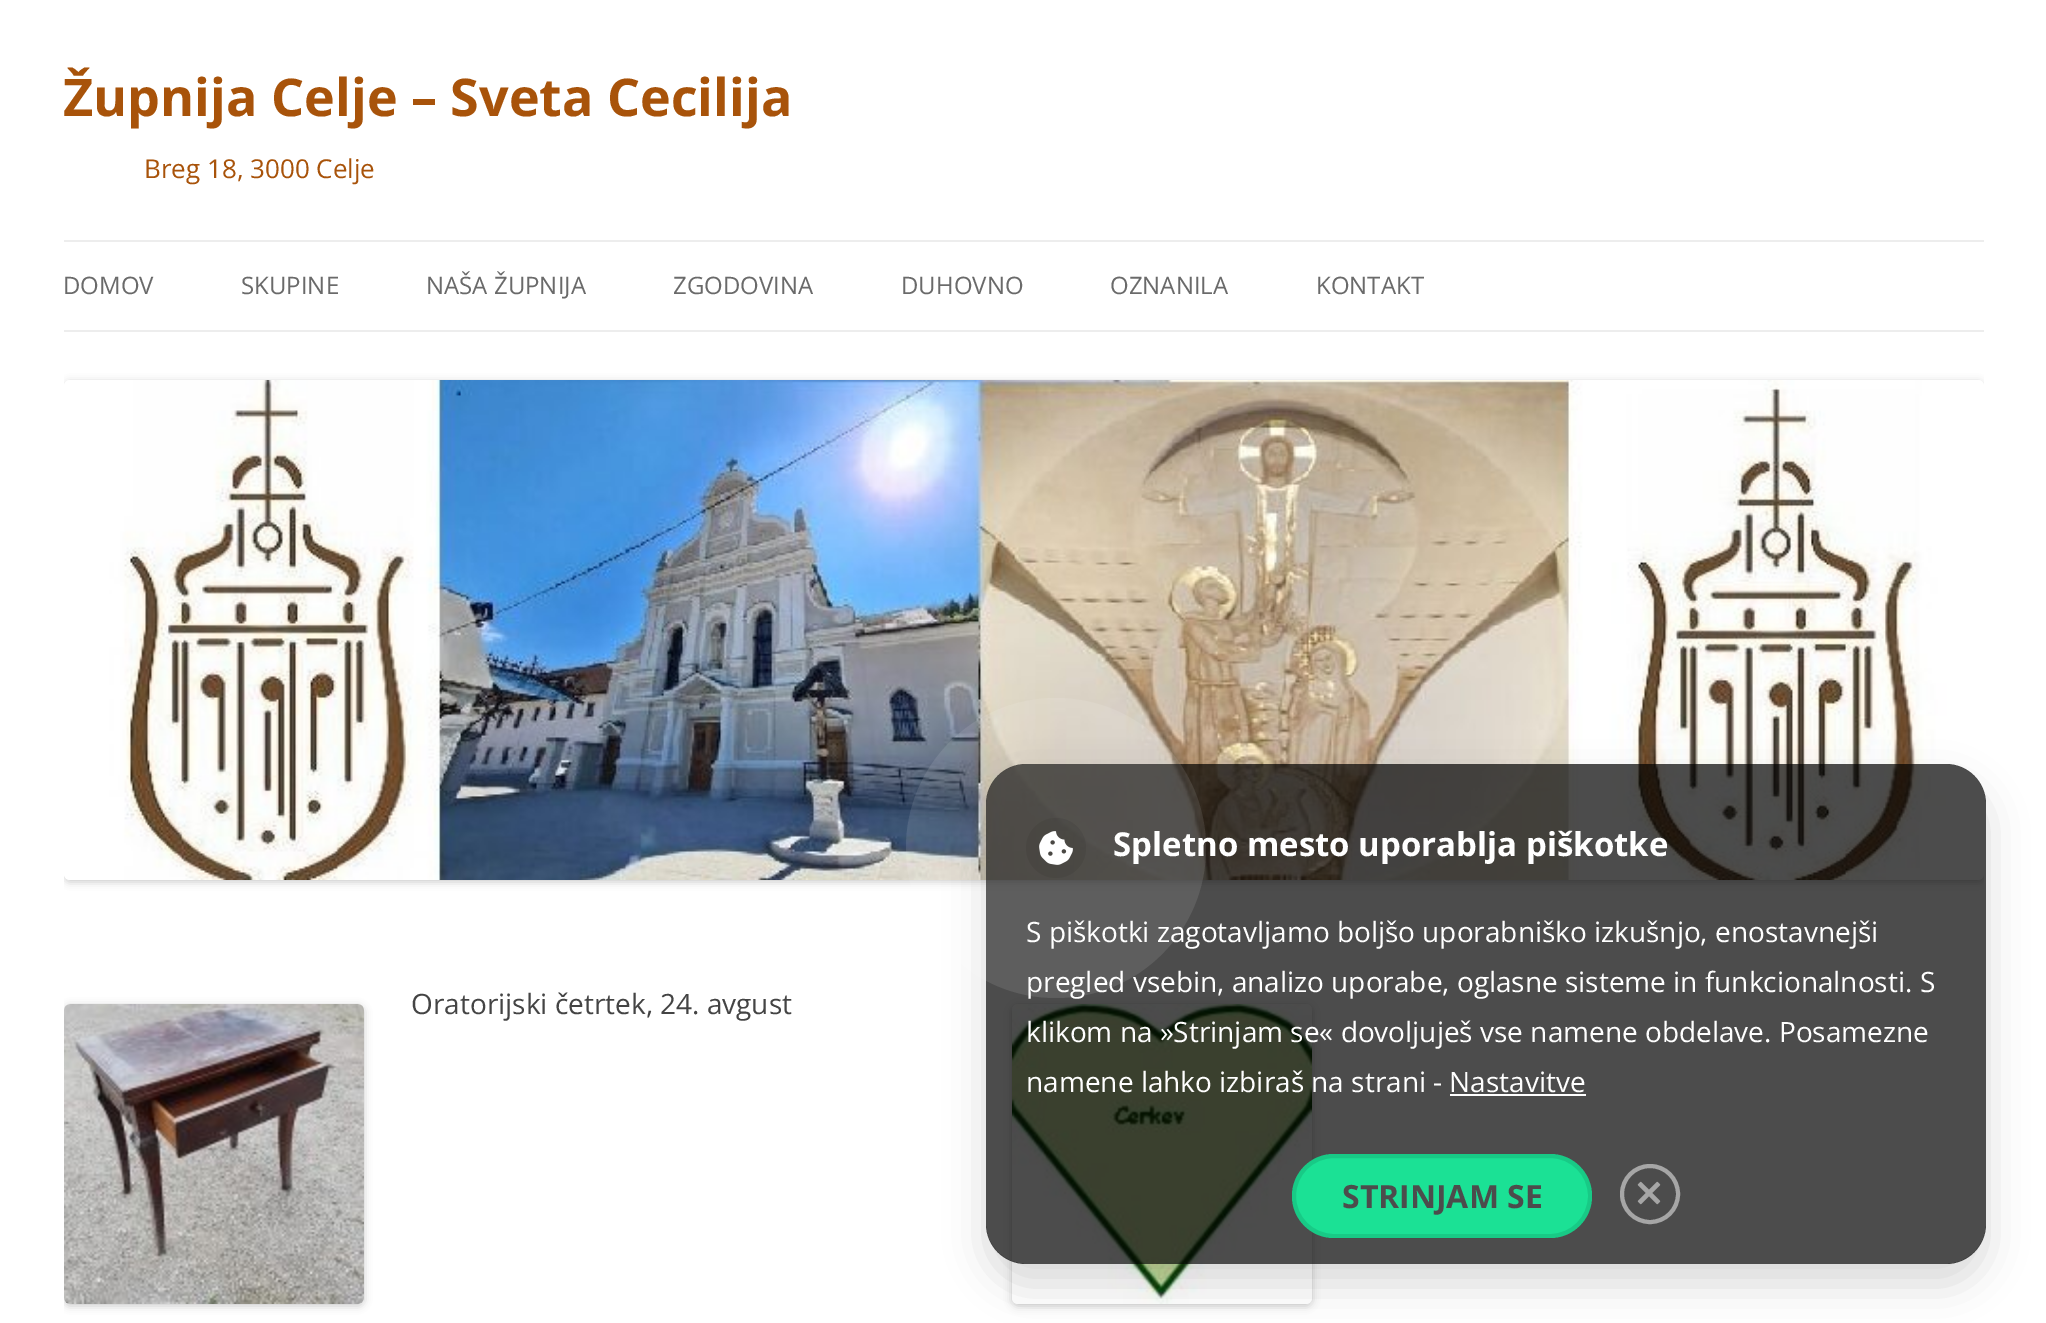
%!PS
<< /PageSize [2046 1323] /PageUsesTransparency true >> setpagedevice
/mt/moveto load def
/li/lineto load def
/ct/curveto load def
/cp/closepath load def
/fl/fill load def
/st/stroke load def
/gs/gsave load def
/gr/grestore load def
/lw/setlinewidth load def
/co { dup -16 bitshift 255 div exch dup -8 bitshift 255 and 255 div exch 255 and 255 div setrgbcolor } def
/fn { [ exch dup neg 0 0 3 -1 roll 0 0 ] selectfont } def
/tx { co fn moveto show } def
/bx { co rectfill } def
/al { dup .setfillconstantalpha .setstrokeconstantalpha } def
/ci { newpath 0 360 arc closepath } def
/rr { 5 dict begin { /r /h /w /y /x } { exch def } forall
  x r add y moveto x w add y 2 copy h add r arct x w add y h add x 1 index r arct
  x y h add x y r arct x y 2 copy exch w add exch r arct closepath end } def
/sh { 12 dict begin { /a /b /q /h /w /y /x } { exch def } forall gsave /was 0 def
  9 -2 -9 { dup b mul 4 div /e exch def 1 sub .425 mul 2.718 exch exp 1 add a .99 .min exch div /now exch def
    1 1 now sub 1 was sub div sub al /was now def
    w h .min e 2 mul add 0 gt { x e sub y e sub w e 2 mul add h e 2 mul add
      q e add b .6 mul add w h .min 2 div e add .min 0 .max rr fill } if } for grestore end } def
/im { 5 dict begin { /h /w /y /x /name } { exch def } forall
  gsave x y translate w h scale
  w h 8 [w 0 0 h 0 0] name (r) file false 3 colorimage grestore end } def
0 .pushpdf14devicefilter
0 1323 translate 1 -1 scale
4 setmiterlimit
0 0 2046 1323 16#FFFFFF bx
64 240 1920 2 16#EDEDED bx
64 330 1920 2 16#EDEDED bx
gs
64 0 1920 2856 rectclip
16#000000 co
64 382 1920 500 6 4 .2 sh
gr
(media/1.raw) 64 380 1920 500 im
gs
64 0 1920 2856 rectclip
16#000000 co
64 1006 300 300 6 4 .2 sh
gr
(media/2.raw) 64 1004 300 300 im
16#000000 co
1012 1006 300 300 6 4 .2 sh
(media/3.raw) 1012 1004 300 300 im
gs
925 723 mt 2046 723 li 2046 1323 li 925 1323 li cp 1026 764 mt 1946 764 li 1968 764 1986 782 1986 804 ct 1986 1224 li 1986 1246 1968 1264 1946 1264 ct 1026 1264 li 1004 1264 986 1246 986 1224 ct 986 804 li 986 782 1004 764 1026 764 ct cp eoclip newpath
986 784 1000 500 40 20 .15 sh
gr
0.7 al
986 764 1000 500 40 rr fl
0.1 al
1056 848 30 ci fl
1 al
(media/4.raw) 1039 831 34 34 im
0.1 al
16#FFFFFF co
1056 848 150 ci fl
1 al
1450 1094 136 2 16#FFFFFF bx
16#1BE195 co
1292 1154 300 84 42 rr fl
0.1 al
16#000000 co
4 lw
1294 1156 296 80 40 rr st
0.5 al
16#FFFFFF co
1650 1194 28 ci st
1 al
(media/5.raw) 1637 1181 24 24 im
(Župnija Celje – Sveta Cecilija) 63 116 /OpenSans-Bold 52 16#A8530A tx
(Breg 18, 3000 Celje) 144 178 /OpenSans-Regular 26 16#A8530A tx
(DOMOV) 63 294 /OpenSans-Regular 24 16#6A6A6A tx
(SKUPINE) 241 294 /OpenSans-Regular 24 16#6A6A6A tx
(NAŠA ŽUPNIJA) 426 294 /OpenSans-Regular 24 16#6A6A6A tx
(ZGODOVINA) 673 294 /OpenSans-Regular 24 16#6A6A6A tx
(DUHOVNO) 901 294 /OpenSans-Regular 24 16#6A6A6A tx
(OZNANILA) 1110 294 /OpenSans-Regular 24 16#6A6A6A tx
(KONTAKT) 1316 294 /OpenSans-Regular 24 16#6A6A6A tx
(Oratorijski četrtek, 24. avgust) 411 1014 /OpenSans-Regular 28 16#444444 tx
(Spletno mesto uporablja piškotke) 1113 856 /OpenSans-Bold 33 16#FFFFFF tx
(S piškotki zagotavljamo boljšo uporabniško izkušnjo, enostavnejši) 1026 942 /OpenSans-Regular 28 16#FFFFFF tx
(pregled vsebin, analizo uporabe, oglasne sisteme in funkcionalnosti. S) 1026 992 /OpenSans-Regular 28 16#FFFFFF tx
(klikom na »Strinjam se« dovoljuješ vse namene obdelave. Posamezne) 1026 1042 /OpenSans-Regular 28 16#FFFFFF tx
(namene lahko izbiraš na strani - Nastavitve) 1026 1092 /OpenSans-Regular 28 16#FFFFFF tx
(STRINJAM SE) 1342 1208 /OpenSans-Bold 32 16#4C4C4C tx
.poppdf14devicefilter showpage
